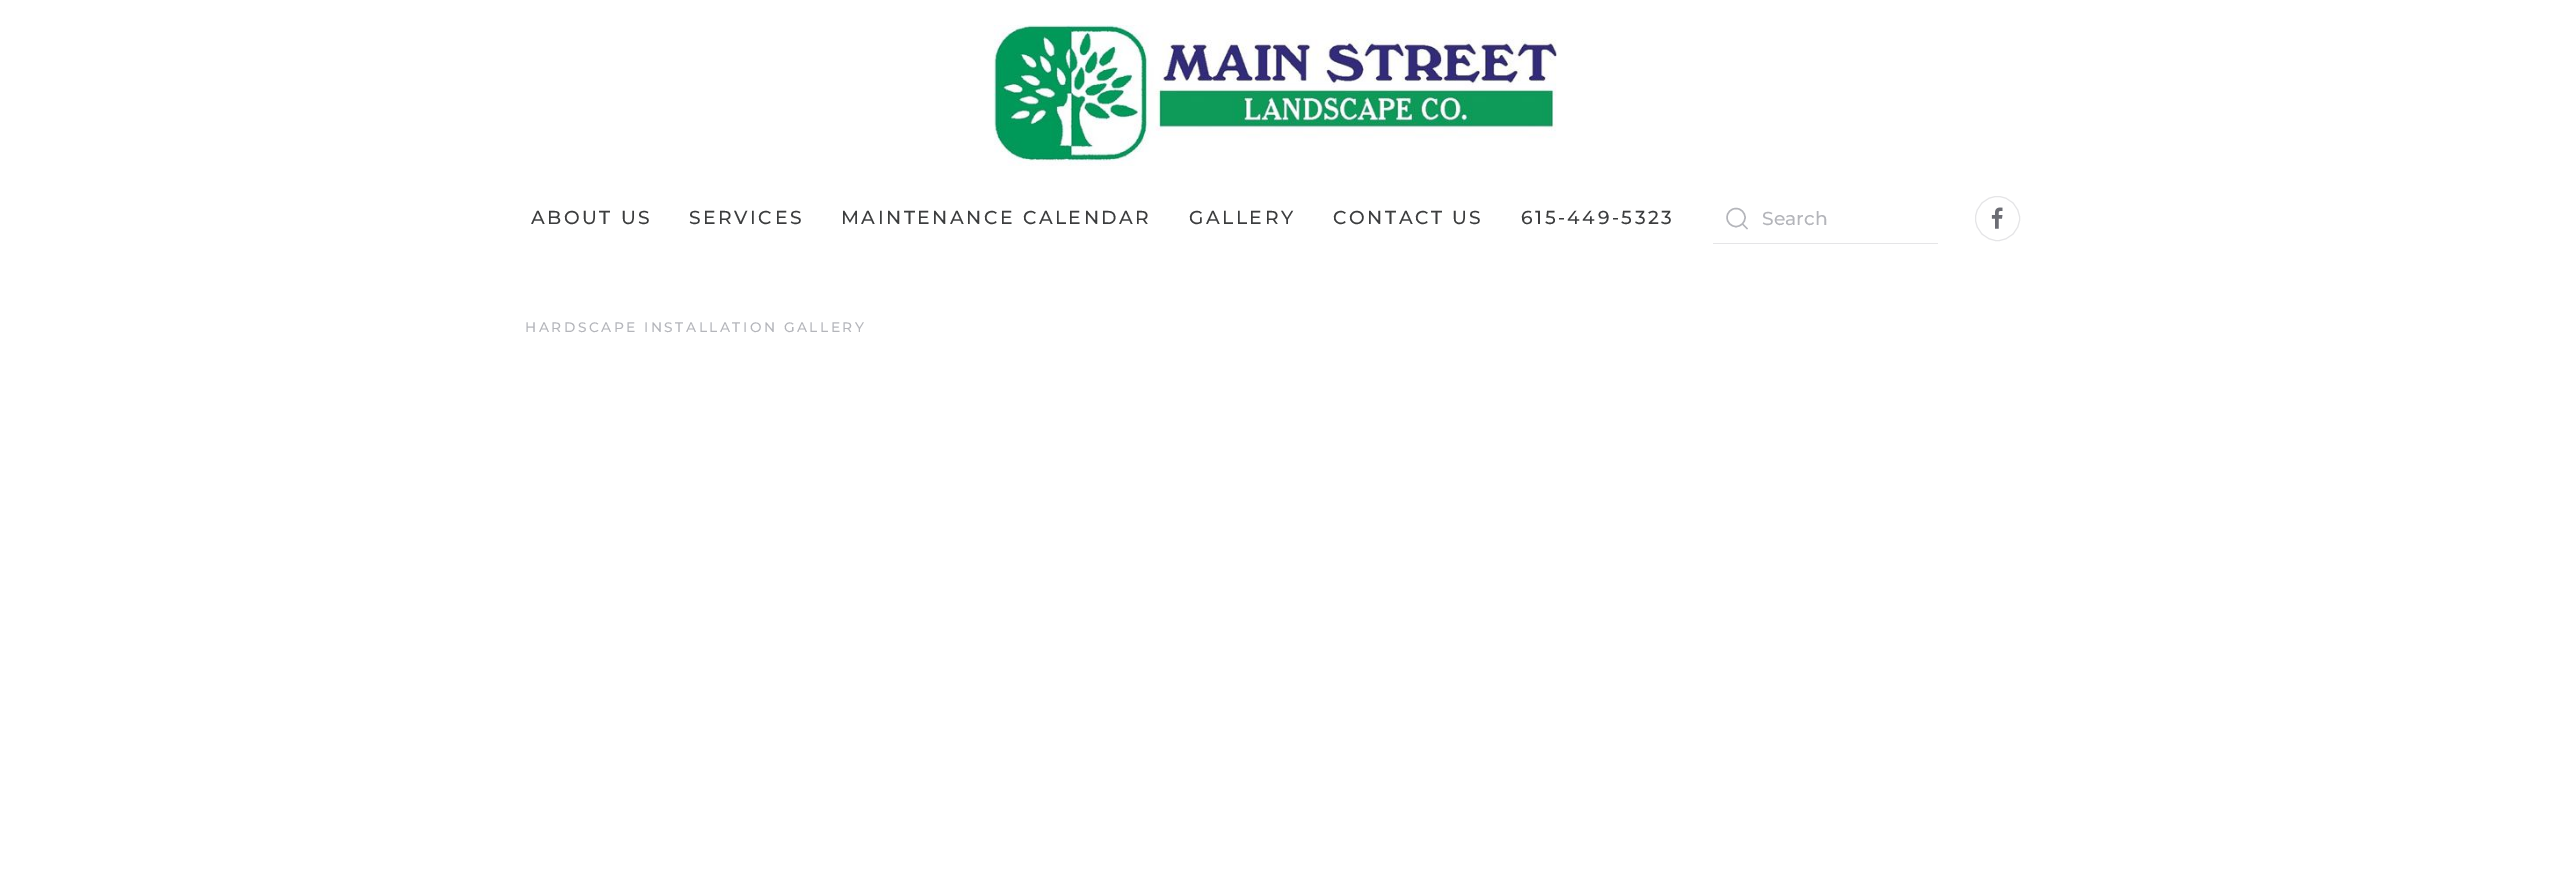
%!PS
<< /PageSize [2549 881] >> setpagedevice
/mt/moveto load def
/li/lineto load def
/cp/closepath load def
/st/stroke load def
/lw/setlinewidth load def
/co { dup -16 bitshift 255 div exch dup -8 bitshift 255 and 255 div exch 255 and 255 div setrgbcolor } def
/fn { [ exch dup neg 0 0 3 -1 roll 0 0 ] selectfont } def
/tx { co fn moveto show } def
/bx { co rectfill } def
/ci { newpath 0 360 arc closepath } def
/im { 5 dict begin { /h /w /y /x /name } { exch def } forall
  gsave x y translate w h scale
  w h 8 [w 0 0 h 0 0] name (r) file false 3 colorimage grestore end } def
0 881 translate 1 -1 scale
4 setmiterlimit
0 0 2549 881 16#FFFFFF bx
(media/1.raw) 993 25 564 141 im
16#B4B5BA co
1.4 lw
1736 217.5 9 ci st
1742.5 224 mt 1747.5 229 li cp st
1713 243 225 1 16#E5E5E7 bx
1 lw
1997.5 218.5 22 ci st
(media/2.raw) 1991 207 12 22 im
/Montserrat-Medium 18.75 fn
16#3C3D3E co
531 224 mt 2.5 0 (ABOUT US) ashow
689 224 mt 2.5 0 (SERVICES) ashow
841 224 mt 2.5 0 (MAINTENANCE CALENDAR) ashow
1189 224 mt 2.5 0 (GALLERY) ashow
1333 224 mt 2.5 0 (CONTACT US) ashow
1521 224 mt 2.5 0 (615-449-5323) ashow
(Search) 1762 225 /Montserrat-Medium 18.75 16#B4B5BA tx
/Montserrat-Medium 13.75 fn
525 332 mt 2.5 0 (HARDSCAPE INSTALLATION GALLERY) ashow
showpage
